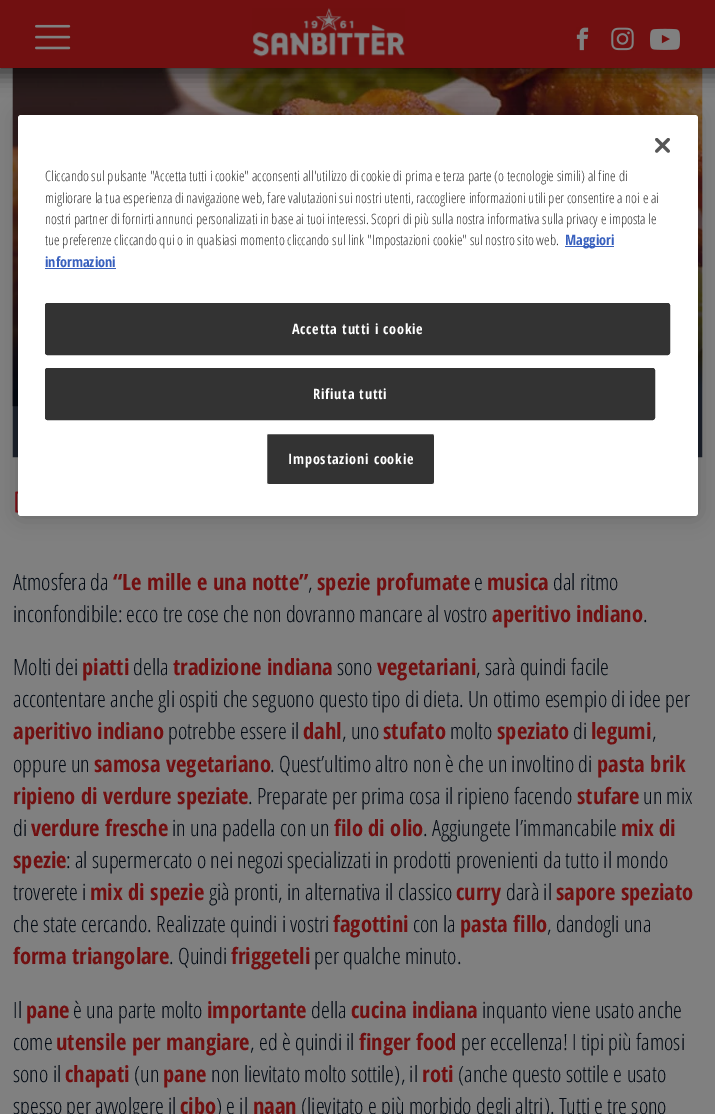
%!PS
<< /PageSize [715 1114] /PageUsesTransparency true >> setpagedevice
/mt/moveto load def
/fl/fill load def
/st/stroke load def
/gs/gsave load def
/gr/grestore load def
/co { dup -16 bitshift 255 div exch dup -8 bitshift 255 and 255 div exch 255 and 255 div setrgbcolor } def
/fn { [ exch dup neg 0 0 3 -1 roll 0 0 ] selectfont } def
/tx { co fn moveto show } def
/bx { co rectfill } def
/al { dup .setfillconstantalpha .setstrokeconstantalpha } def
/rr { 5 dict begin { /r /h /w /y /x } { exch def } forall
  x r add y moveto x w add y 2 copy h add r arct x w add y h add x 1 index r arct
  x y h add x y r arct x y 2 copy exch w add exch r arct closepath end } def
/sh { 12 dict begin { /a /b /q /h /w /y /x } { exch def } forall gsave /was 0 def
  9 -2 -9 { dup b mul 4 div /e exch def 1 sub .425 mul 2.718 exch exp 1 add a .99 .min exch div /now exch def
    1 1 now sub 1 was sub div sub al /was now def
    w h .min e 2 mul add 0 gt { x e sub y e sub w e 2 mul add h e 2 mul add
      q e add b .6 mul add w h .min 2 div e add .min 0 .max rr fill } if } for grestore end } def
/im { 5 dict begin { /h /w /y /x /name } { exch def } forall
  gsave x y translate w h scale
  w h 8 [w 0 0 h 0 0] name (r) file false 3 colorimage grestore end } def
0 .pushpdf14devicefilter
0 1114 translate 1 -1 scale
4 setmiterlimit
0 0 715 1114 16#808080 bx
(media/7.raw) 12 68 691 339 im
(media/8.raw) 12 68 691 390 im
(media/9.raw) 15 491 3 22 im
16#000000 co
18 115 680 401 3 11 .2 sh
16#FFFFFF co
18 115 680 401 3 rr fl
(media/1.raw) 655 138 15 15 im
565 246 49 1 16#3860BE bx
45 268 71 1 16#3860BE bx
16#333333 co
45.5 303.5 624 51 2 rr gs fl gr
st
45.5 368.5 609 51 2 rr gs fl gr
st
266.5 433.5 168 51 2 rr gs fl gr
16#FFFFFF co
st
16#000000 co
-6 -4 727 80 0 9.5 .51 sh
0 0 715 68 16#711011 bx
(media/2.raw) 35 24 36 26 im
(media/3.raw) 252 8 153 49 im
(media/4.raw) 576 27 13 24 im
(media/5.raw) 611 27 23 24 im
(media/6.raw) 650 28 30 22 im
(Cliccando sul pulsante "Accetta tutti i cookie" acconsenti all'utilizzo di cookie di prima e terza parte \(o tecnologie simili\) al fine di) 45 181 /OpenSansCondensed-Light 14.25 16#333333 tx
(migliorare la tua esperienza di navigazione web, fare valutazioni sui nostri utenti, raccogliere informazioni utili per consentire a noi e ai) 45 203 /OpenSansCondensed-Light 14.25 16#333333 tx
(nostri partner di fornirti annunci personalizzati in base ai tuoi interessi. Scopri di più sulla nostra informativa sulla privacy e imposta le) 45 224 /OpenSansCondensed-Light 14.25 16#333333 tx
(tue preferenze cliccando qui o in qualsiasi momento cliccando sul link "Impostazioni cookie" sul nostro sito web.) 45 245 /OpenSansCondensed-Light 14.25 16#333333 tx
(Maggiori) 565 245 /OpenSansCondensed-Bold 14.25 16#3860BE tx
(informazioni) 45 267 /OpenSansCondensed-Bold 14.25 16#3860BE tx
16#FFFFFF co
292 334 mt .75 0 (Accetta tutti i cookie) ashow
313 399 mt .75 0 (Rifiuta tutti) ashow
288 464 mt .75 0 (Impostazioni cookie) ashow
(Atmosfera da) 13 590 /OpenSansCondensed-Light 22.5 16#020A14 tx
(“Le mille e una notte”) 113 590 /OpenSansCondensed-Bold 22.5 16#711011 tx
(,) 308 590 /OpenSansCondensed-Light 22.5 16#020A14 tx
(spezie profumate) 317 590 /OpenSansCondensed-Bold 22.5 16#711011 tx
(e) 474 590 /OpenSansCondensed-Light 22.5 16#020A14 tx
(musica) 487 590 /OpenSansCondensed-Bold 22.5 16#711011 tx
(dal ritmo) 553 590 /OpenSansCondensed-Light 22.5 16#020A14 tx
(inconfondibile: ecco tre cose che non dovranno mancare al vostro) 13 622 /OpenSansCondensed-Light 22.5 16#020A14 tx
(aperitivo indiano) 492 622 /OpenSansCondensed-Bold 22.5 16#711011 tx
(.) 643 622 /OpenSansCondensed-Light 22.5 16#020A14 tx
(Molti dei) 13 675 /OpenSansCondensed-Light 22.5 16#020A14 tx
(piatti) 82 675 /OpenSansCondensed-Bold 22.5 16#711011 tx
(della) 133 675 /OpenSansCondensed-Light 22.5 16#020A14 tx
(tradizione indiana) 173 675 /OpenSansCondensed-Bold 22.5 16#711011 tx
(sono) 337 675 /OpenSansCondensed-Light 22.5 16#020A14 tx
(vegetariani) 377 675 /OpenSansCondensed-Bold 22.5 16#711011 tx
(, sarà quindi facile) 476 675 /OpenSansCondensed-Light 22.5 16#020A14 tx
(accontentare anche gli ospiti che seguono questo tipo di dieta. Un ottimo esempio di idee per) 13 707 /OpenSansCondensed-Light 22.5 16#020A14 tx
(aperitivo indiano) 13 739 /OpenSansCondensed-Bold 22.5 16#711011 tx
(potrebbe essere il) 168 739 /OpenSansCondensed-Light 22.5 16#020A14 tx
(dahl) 303 739 /OpenSansCondensed-Bold 22.5 16#711011 tx
(, uno) 342 739 /OpenSansCondensed-Light 22.5 16#020A14 tx
(stufato) 383 739 /OpenSansCondensed-Bold 22.5 16#711011 tx
(molto) 450 739 /OpenSansCondensed-Light 22.5 16#020A14 tx
(speziato) 497 739 /OpenSansCondensed-Bold 22.5 16#711011 tx
(di) 573 739 /OpenSansCondensed-Light 22.5 16#020A14 tx
(legumi) 591 739 /OpenSansCondensed-Bold 22.5 16#711011 tx
(,) 652 739 /OpenSansCondensed-Light 22.5 16#020A14 tx
(oppure un) 13 772 /OpenSansCondensed-Light 22.5 16#020A14 tx
(samosa vegetariano) 94 772 /OpenSansCondensed-Bold 22.5 16#711011 tx
(. Quest’ultimo altro non è che un involtino di) 270 772 /OpenSansCondensed-Light 22.5 16#020A14 tx
(pasta brik) 597 772 /OpenSansCondensed-Bold 22.5 16#711011 tx
(ripieno di verdure speziate) 13 804 /OpenSansCondensed-Bold 22.5 16#711011 tx
(. Preparate per prima cosa il ripieno facendo) 248 804 /OpenSansCondensed-Light 22.5 16#020A14 tx
(stufare) 577 804 /OpenSansCondensed-Bold 22.5 16#711011 tx
(un mix) 643 804 /OpenSansCondensed-Light 22.5 16#020A14 tx
(di) 13 836 /OpenSansCondensed-Light 22.5 16#020A14 tx
(verdure fresche) 31 836 /OpenSansCondensed-Bold 22.5 16#711011 tx
(in una padella con un) 172 836 /OpenSansCondensed-Light 22.5 16#020A14 tx
(filo di olio) 334 836 /OpenSansCondensed-Bold 22.5 16#711011 tx
(. Aggiungete l’immancabile) 423 836 /OpenSansCondensed-Light 22.5 16#020A14 tx
(mix di) 621 836 /OpenSansCondensed-Bold 22.5 16#711011 tx
(spezie) 13 868 /OpenSansCondensed-Bold 22.5 16#711011 tx
(: al supermercato o nei negozi specializzati in prodotti provenienti da tutto il mondo) 66 868 /OpenSansCondensed-Light 22.5 16#020A14 tx
(troverete i) 13 900 /OpenSansCondensed-Light 22.5 16#020A14 tx
(mix di spezie) 90 900 /OpenSansCondensed-Bold 22.5 16#711011 tx
(già pronti, in alternativa il classico) 209 900 /OpenSansCondensed-Light 22.5 16#020A14 tx
(curry) 456 900 /OpenSansCondensed-Bold 22.5 16#711011 tx
(darà il) 506 900 /OpenSansCondensed-Light 22.5 16#020A14 tx
(sapore speziato) 556 900 /OpenSansCondensed-Bold 22.5 16#711011 tx
(che state cercando. Realizzate quindi i vostri) 13 932 /OpenSansCondensed-Light 22.5 16#020A14 tx
(fagottini) 333 932 /OpenSansCondensed-Bold 22.5 16#711011 tx
(con la) 413 932 /OpenSansCondensed-Light 22.5 16#020A14 tx
(pasta fillo) 460 932 /OpenSansCondensed-Bold 22.5 16#711011 tx
(, dandogli una) 547 932 /OpenSansCondensed-Light 22.5 16#020A14 tx
(forma triangolare) 13 964 /OpenSansCondensed-Bold 22.5 16#711011 tx
(. Quindi) 169 964 /OpenSansCondensed-Light 22.5 16#020A14 tx
(friggeteli) 231 964 /OpenSansCondensed-Bold 22.5 16#711011 tx
(per qualche minuto.) 314 964 /OpenSansCondensed-Light 22.5 16#020A14 tx
(Il) 13 1018 /OpenSansCondensed-Light 22.5 16#020A14 tx
(pane) 26 1018 /OpenSansCondensed-Bold 22.5 16#711011 tx
(è una parte molto) 73 1018 /OpenSansCondensed-Light 22.5 16#020A14 tx
(importante) 207 1018 /OpenSansCondensed-Bold 22.5 16#711011 tx
(della) 311 1018 /OpenSansCondensed-Light 22.5 16#020A14 tx
(cucina indiana) 351 1018 /OpenSansCondensed-Bold 22.5 16#711011 tx
(inquanto viene usato anche) 482 1018 /OpenSansCondensed-Light 22.5 16#020A14 tx
(come) 13 1050 /OpenSansCondensed-Light 22.5 16#020A14 tx
(utensile per mangiare) 56 1050 /OpenSansCondensed-Bold 22.5 16#711011 tx
(, ed è quindi il) 250 1050 /OpenSansCondensed-Light 22.5 16#020A14 tx
(finger food) 359 1050 /OpenSansCondensed-Bold 22.5 16#711011 tx
(per eccellenza! I tipi più famosi) 461 1050 /OpenSansCondensed-Light 22.5 16#020A14 tx
(sono il) 13 1082 /OpenSansCondensed-Light 22.5 16#020A14 tx
(chapati) 65 1082 /OpenSansCondensed-Bold 22.5 16#711011 tx
(\(un) 134 1082 /OpenSansCondensed-Light 22.5 16#020A14 tx
(pane) 163 1082 /OpenSansCondensed-Bold 22.5 16#711011 tx
(non lievitato molto sottile\), il) 211 1082 /OpenSansCondensed-Light 22.5 16#020A14 tx
(roti) 422 1082 /OpenSansCondensed-Bold 22.5 16#711011 tx
(\(anche questo sottile e usato) 458 1082 /OpenSansCondensed-Light 22.5 16#020A14 tx
(spesso per avvolgere il) 13 1114 /OpenSansCondensed-Light 22.5 16#020A14 tx
(cibo) 180 1114 /OpenSansCondensed-Bold 22.5 16#711011 tx
(\) e il) 216 1114 /OpenSansCondensed-Light 22.5 16#020A14 tx
(naan) 253 1114 /OpenSansCondensed-Bold 22.5 16#711011 tx
(\(lievitato e più morbido degli altri\). Tutti e tre sono) 301 1114 /OpenSansCondensed-Light 22.5 16#020A14 tx
.poppdf14devicefilter showpage
